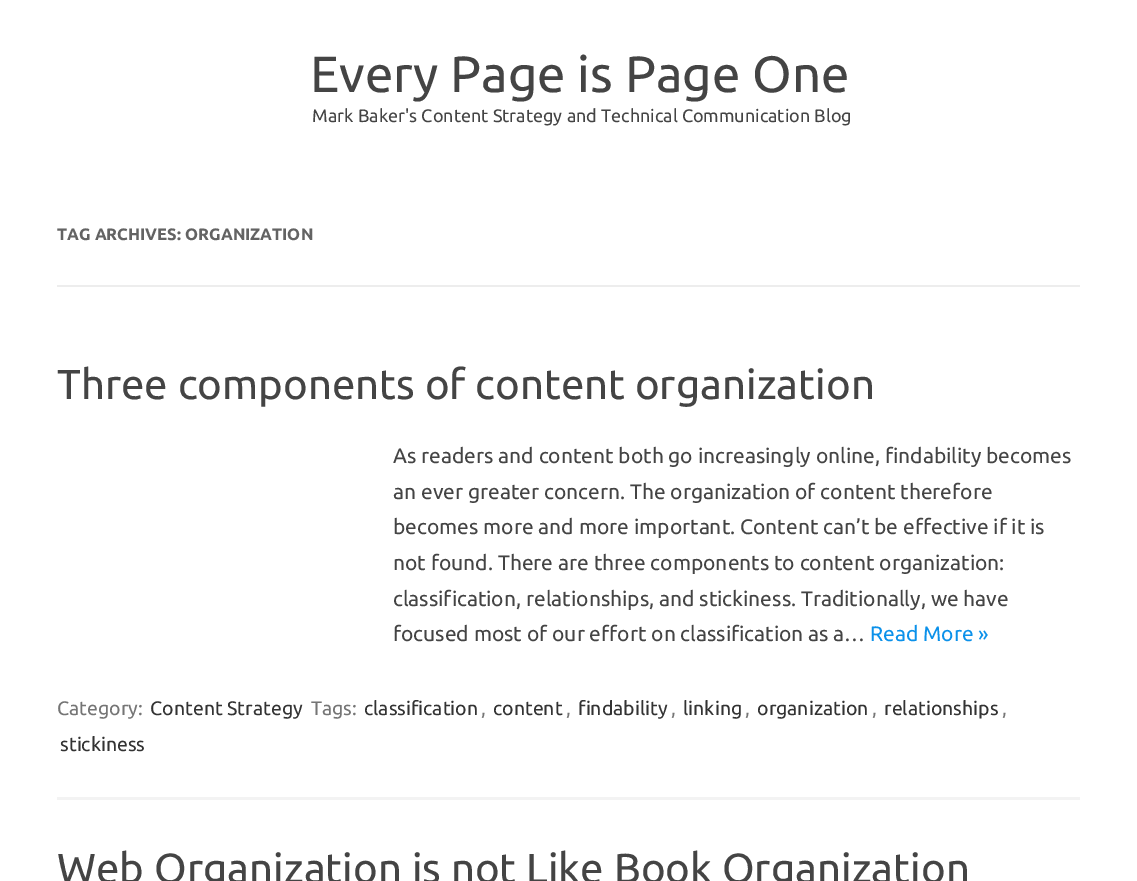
%!PS
<< /PageSize [1137 881] >> setpagedevice
/co { dup -16 bitshift 255 div exch dup -8 bitshift 255 and 255 div exch 255 and 255 div setrgbcolor } def
/fn { [ exch dup neg 0 0 3 -1 roll 0 0 ] selectfont } def
/tx { co fn moveto show } def
/bx { co rectfill } def
0 881 translate 1 -1 scale
4 setmiterlimit
0 0 1137 881 16#FFFFFF bx
57 285 1023 2 16#EDEDED bx
57 797 1023 3 16#F3F3F3 bx
(Every Page is Page One) 310 92 /Ubuntu-Regular 51 16#444444 tx
(Mark Baker's Content Strategy and Technical Communication Blog) 312 122 /Ubuntu-Regular 18 16#444444 tx
(TAG ARCHIVES: ORGANIZATION) 57 240 /Ubuntu-Bold 16.5 16#636363 tx
(Three components of content organization) 57 399 /Ubuntu-Regular 42 16#444444 tx
(As readers and content both go increasingly online, findability becomes) 393 463 /Ubuntu-Regular 21 16#444444 tx
(an ever greater concern. The organization of content therefore) 393 499 /Ubuntu-Regular 21 16#444444 tx
(becomes more and more important. Content can’t be effective if it is) 393 534 /Ubuntu-Regular 21 16#444444 tx
(not found. There are three components to content organization:) 393 570 /Ubuntu-Regular 21 16#444444 tx
(classification, relationships, and stickiness. Traditionally, we have) 393 606 /Ubuntu-Regular 21 16#444444 tx
(focused most of our effort on classification as a…) 393 641 /Ubuntu-Regular 21 16#444444 tx
(Read More ») 870 641 /Ubuntu-Regular 21 16#0B91EA tx
(Category:) 57 715 /Ubuntu-Regular 19.5 16#757575 tx
(Content Strategy) 150 715 /Ubuntu-Regular 19.5 16#333333 tx
(Tags:) 311 715 /Ubuntu-Regular 19.5 16#757575 tx
(classification) 364 715 /Ubuntu-Regular 19.5 16#333333 tx
(,) 481 715 /Ubuntu-Regular 19.5 16#757575 tx
(content) 493 715 /Ubuntu-Regular 19.5 16#333333 tx
(,) 566 715 /Ubuntu-Regular 19.5 16#757575 tx
(findability) 578 715 /Ubuntu-Regular 19.5 16#333333 tx
(,) 671 715 /Ubuntu-Regular 19.5 16#757575 tx
(linking) 683 715 /Ubuntu-Regular 19.5 16#333333 tx
(,) 745 715 /Ubuntu-Regular 19.5 16#757575 tx
(organization) 757 715 /Ubuntu-Regular 19.5 16#333333 tx
(,) 872 715 /Ubuntu-Regular 19.5 16#757575 tx
(relationships) 884 715 /Ubuntu-Regular 19.5 16#333333 tx
(,) 1002 715 /Ubuntu-Regular 19.5 16#757575 tx
(stickiness) 60 751 /Ubuntu-Regular 19.5 16#333333 tx
(Web Organization is not Like Book Organization) 57 883 /Ubuntu-Regular 42 16#444444 tx
showpage
